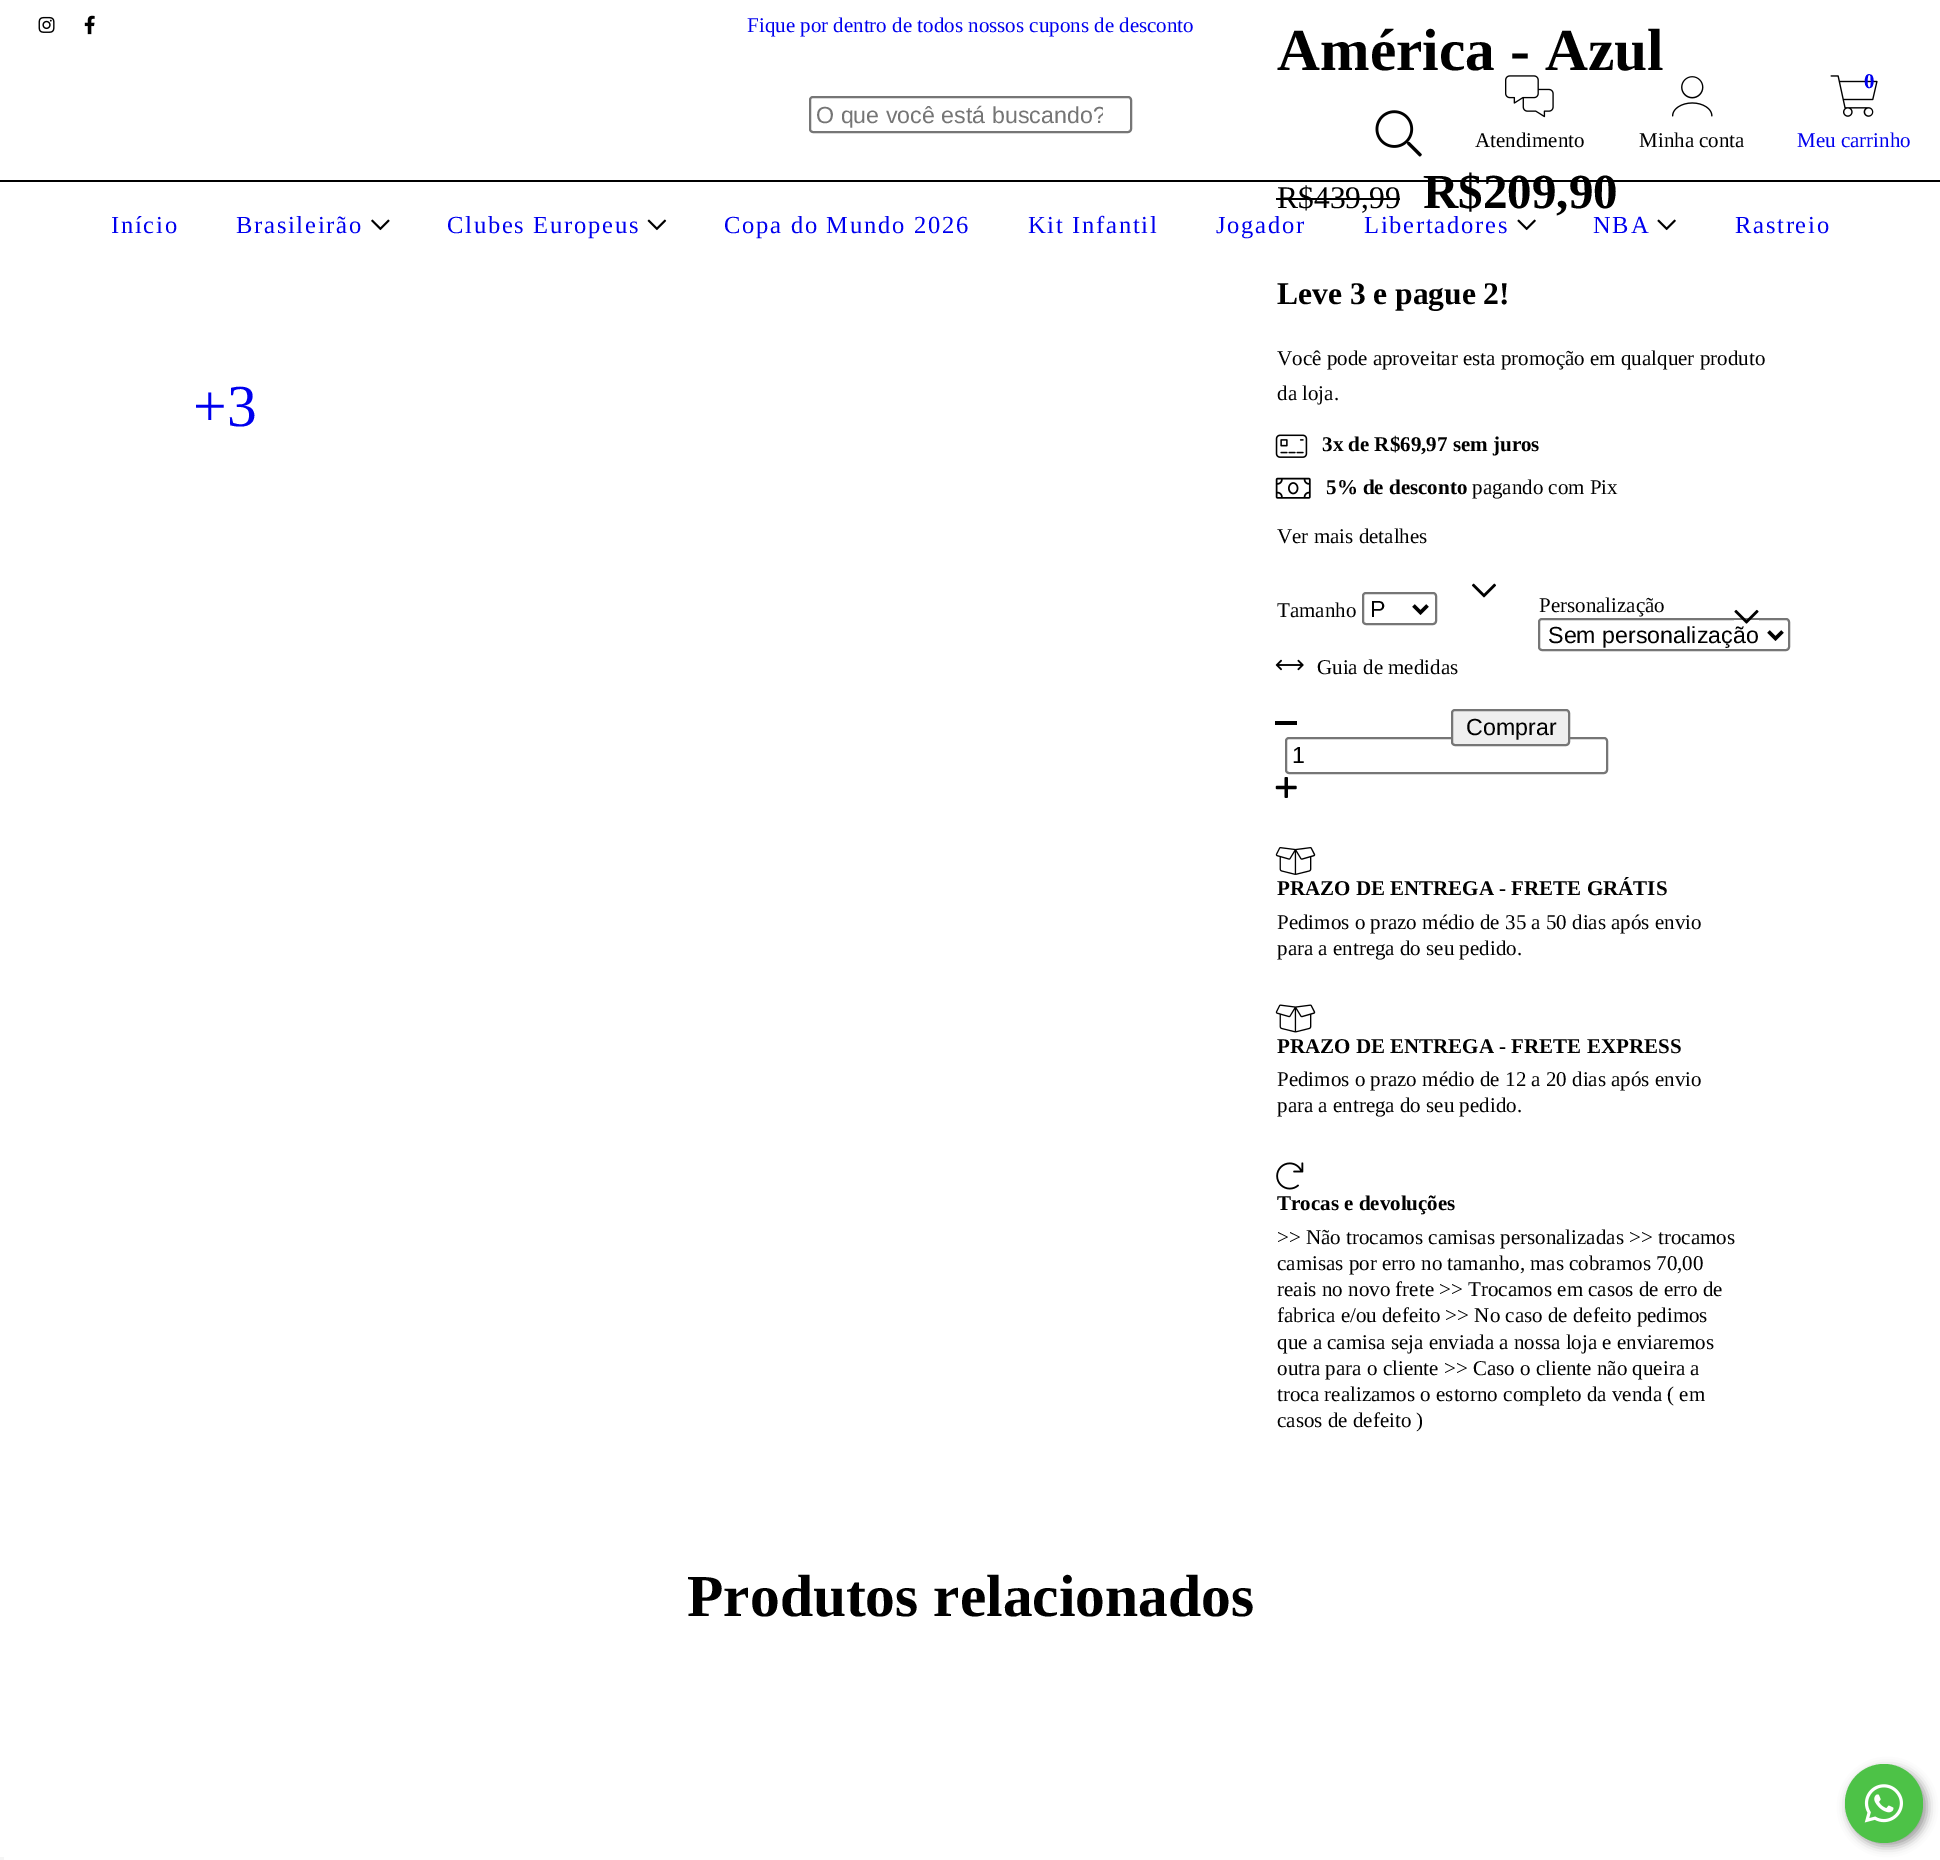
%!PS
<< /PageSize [1940 1860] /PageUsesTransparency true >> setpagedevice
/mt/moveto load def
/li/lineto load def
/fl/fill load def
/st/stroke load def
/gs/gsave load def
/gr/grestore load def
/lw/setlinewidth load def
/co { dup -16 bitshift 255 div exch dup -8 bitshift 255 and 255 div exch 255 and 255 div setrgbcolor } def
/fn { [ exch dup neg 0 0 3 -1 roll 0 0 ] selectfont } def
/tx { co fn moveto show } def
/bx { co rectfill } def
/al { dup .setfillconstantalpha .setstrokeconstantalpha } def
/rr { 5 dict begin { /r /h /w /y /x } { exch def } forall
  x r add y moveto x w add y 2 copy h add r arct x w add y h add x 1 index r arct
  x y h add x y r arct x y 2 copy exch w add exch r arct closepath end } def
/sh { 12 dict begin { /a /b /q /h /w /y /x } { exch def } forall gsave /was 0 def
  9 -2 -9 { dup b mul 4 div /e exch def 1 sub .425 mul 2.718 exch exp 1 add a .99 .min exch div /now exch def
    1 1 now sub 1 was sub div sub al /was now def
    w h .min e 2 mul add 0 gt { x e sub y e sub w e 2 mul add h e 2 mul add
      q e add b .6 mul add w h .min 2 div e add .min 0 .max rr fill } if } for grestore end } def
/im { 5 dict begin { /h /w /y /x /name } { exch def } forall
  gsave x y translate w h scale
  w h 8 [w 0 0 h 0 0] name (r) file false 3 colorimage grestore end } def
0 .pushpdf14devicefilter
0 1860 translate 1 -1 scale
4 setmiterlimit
0 0 1940 1860 16#FFFFFF bx
(media/1.raw) 38 16 17 17 im
(media/2.raw) 84 15 11 20 im
16#767676 co
2 lw
810 97 321 35 3 rr st
(media/3.raw) 1375 110 47 47 im
(media/4.raw) 1505 75 49 43 im
(media/5.raw) 1672 76 41 41 im
(media/6.raw) 1830 75 48 42 im
0 180 1940 2 16#000000 bx
(media/7.raw) 371 219 19 12 im
(media/8.raw) 647 219 20 12 im
(media/9.raw) 1517 219 19 12 im
(media/9.raw) 1657 219 19 12 im
1276 198 124 2 16#000000 bx
(media/10.raw) 1275 434 33 24 im
(media/11.raw) 1275 477 36 22 im
(media/12.raw) 1471 583 25 15 im
16#767676 co
1363 593 73 31 3 rr st
16#000000 co
3.5 lw
1413.5 605.5 mt 1420.5 612.5 li 1427.5 605.5 li st
16#767676 co
2 lw
1539 619 250 31 3 rr st
(media/13.raw) 1734 609 25 15 im
16#000000 co
3.5 lw
1768.5 631.5 mt 1775.5 638.5 li 1782.5 631.5 li st
(media/14.raw) 1275 659 29 12 im
16#767676 co
2 lw
1286 738 321 35 3 rr st
16#EFEFEF co
1452 710 117 35 3 rr gs fl gr
16#767676 co
st
1275 721 22 4 16#000000 bx
(media/15.raw) 1275 777 22 21 im
(media/16.raw) 1275 847 41 28 im
(media/17.raw) 1275 1004 41 29 im
(media/18.raw) 1276 1162 28 28 im
0 1857 4 3 16#F5F5F5 bx
16#000000 co
1848 1768 79 78 39 5 .4 sh
16#4DC247 co
1845 1764 78 79 39 rr fl
(media/19.raw) 1864 1784 39 39 im
(Fique por dentro de todos nossos cupons de desconto) 747 32 /LiberationSerif-Regular 21 16#0000EE tx
gs
816 102 287 26 rectclip
(O que você está buscando?) 816 123 /LiberationSans-Regular 23.25 16#757575 tx
gr
(Atendimento) 1475 147 /LiberationSerif-Regular 21 16#000000 tx
(Minha conta) 1639 147 /LiberationSerif-Regular 21 16#000000 tx
(0) 1864 88 /LiberationSerif-Bold 21 16#0000EE tx
(Meu carrinho) 1797 147 /LiberationSerif-Regular 21 16#0000EE tx
/LiberationSerif-Regular 24.5 fn
111 233 mt 1.75 0 (Início) ashow
236 233 mt 1.75 0 (Brasileirão) ashow
447 233 mt 1.75 0 (Clubes Europeus) ashow
724 233 mt 1.75 0 (Copa do Mundo 2026) ashow
1028 233 mt 1.75 0 (Kit Infantil) ashow
1216 233 mt 1.75 0 (Jogador) ashow
1364 233 mt 1.75 0 (Libertadores) ashow
1593 233 mt 1.75 0 (NBA) ashow
1735 233 mt 1.75 0 (Rastreio) ashow
(+3) 193 426 /LiberationSerif-Regular 59.5 16#0000EE tx
(América - Azul) 1277 70 /LiberationSerif-Bold 59.5 16#000000 tx
(R$439,99) 1277 208 /LiberationSerif-Regular 31.5 16#000000 tx
(R$209,90) 1423 208 /LiberationSerif-Bold 49 16#000000 tx
(Leve 3 e pague 2!) 1277 304 /LiberationSerif-Bold 31.5 16#000000 tx
(Você pode aproveitar esta promoção em qualquer produto) 1277 365 /LiberationSerif-Regular 21 16#000000 tx
(da loja.) 1277 400 /LiberationSerif-Regular 21 16#000000 tx
(3x de R$69,97 sem juros) 1322 451 /LiberationSerif-Bold 21 16#000000 tx
(5% de desconto) 1326 494 /LiberationSerif-Bold 21 16#000000 tx
(pagando com Pix) 1472 494 /LiberationSerif-Regular 21 16#000000 tx
(Ver mais detalhes) 1277 543 /LiberationSerif-Regular 21 16#000000 tx
(Tamanho) 1277 617 /LiberationSerif-Regular 21 16#000000 tx
(P) 1370 617 /LiberationSans-Regular 23.25 16#000000 tx
(Personalização) 1539 612 /LiberationSerif-Regular 21 16#000000 tx
(Sem personalização) 1548 643 /LiberationSans-Regular 23.25 16#000000 tx
(Guia de medidas) 1317 674 /LiberationSerif-Regular 21 16#000000 tx
(Comprar) 1466 735 /LiberationSans-Regular 23.25 16#000000 tx
(1) 1292 763 /LiberationSans-Regular 23.25 16#000000 tx
(PRAZO DE ENTREGA - FRETE GRÁTIS) 1277 895 /LiberationSerif-Bold 21 16#000000 tx
(Pedimos o prazo médio de 35 a 50 dias após envio) 1277 929 /LiberationSerif-Regular 21 16#000000 tx
(para a entrega do seu pedido.) 1277 955 /LiberationSerif-Regular 21 16#000000 tx
(PRAZO DE ENTREGA - FRETE EXPRESS) 1277 1053 /LiberationSerif-Bold 21 16#000000 tx
(Pedimos o prazo médio de 12 a 20 dias após envio) 1277 1086 /LiberationSerif-Regular 21 16#000000 tx
(para a entrega do seu pedido.) 1277 1112 /LiberationSerif-Regular 21 16#000000 tx
(Trocas e devoluções) 1277 1210 /LiberationSerif-Bold 21 16#000000 tx
(>> Não trocamos camisas personalizadas >> trocamos) 1277 1244 /LiberationSerif-Regular 21 16#000000 tx
(camisas por erro no tamanho, mas cobramos 70,00) 1277 1270 /LiberationSerif-Regular 21 16#000000 tx
(reais no novo frete >> Trocamos em casos de erro de) 1277 1296 /LiberationSerif-Regular 21 16#000000 tx
(fabrica e/ou defeito >> No caso de defeito pedimos) 1277 1322 /LiberationSerif-Regular 21 16#000000 tx
(que a camisa seja enviada a nossa loja e enviaremos) 1277 1349 /LiberationSerif-Regular 21 16#000000 tx
(outra para o cliente >> Caso o cliente não queira a) 1277 1375 /LiberationSerif-Regular 21 16#000000 tx
(troca realizamos o estorno completo da venda \( em) 1277 1401 /LiberationSerif-Regular 21 16#000000 tx
(casos de defeito \)) 1277 1427 /LiberationSerif-Regular 21 16#000000 tx
(Produtos relacionados) 687 1616 /LiberationSerif-Bold 59.5 16#000000 tx
.poppdf14devicefilter showpage
